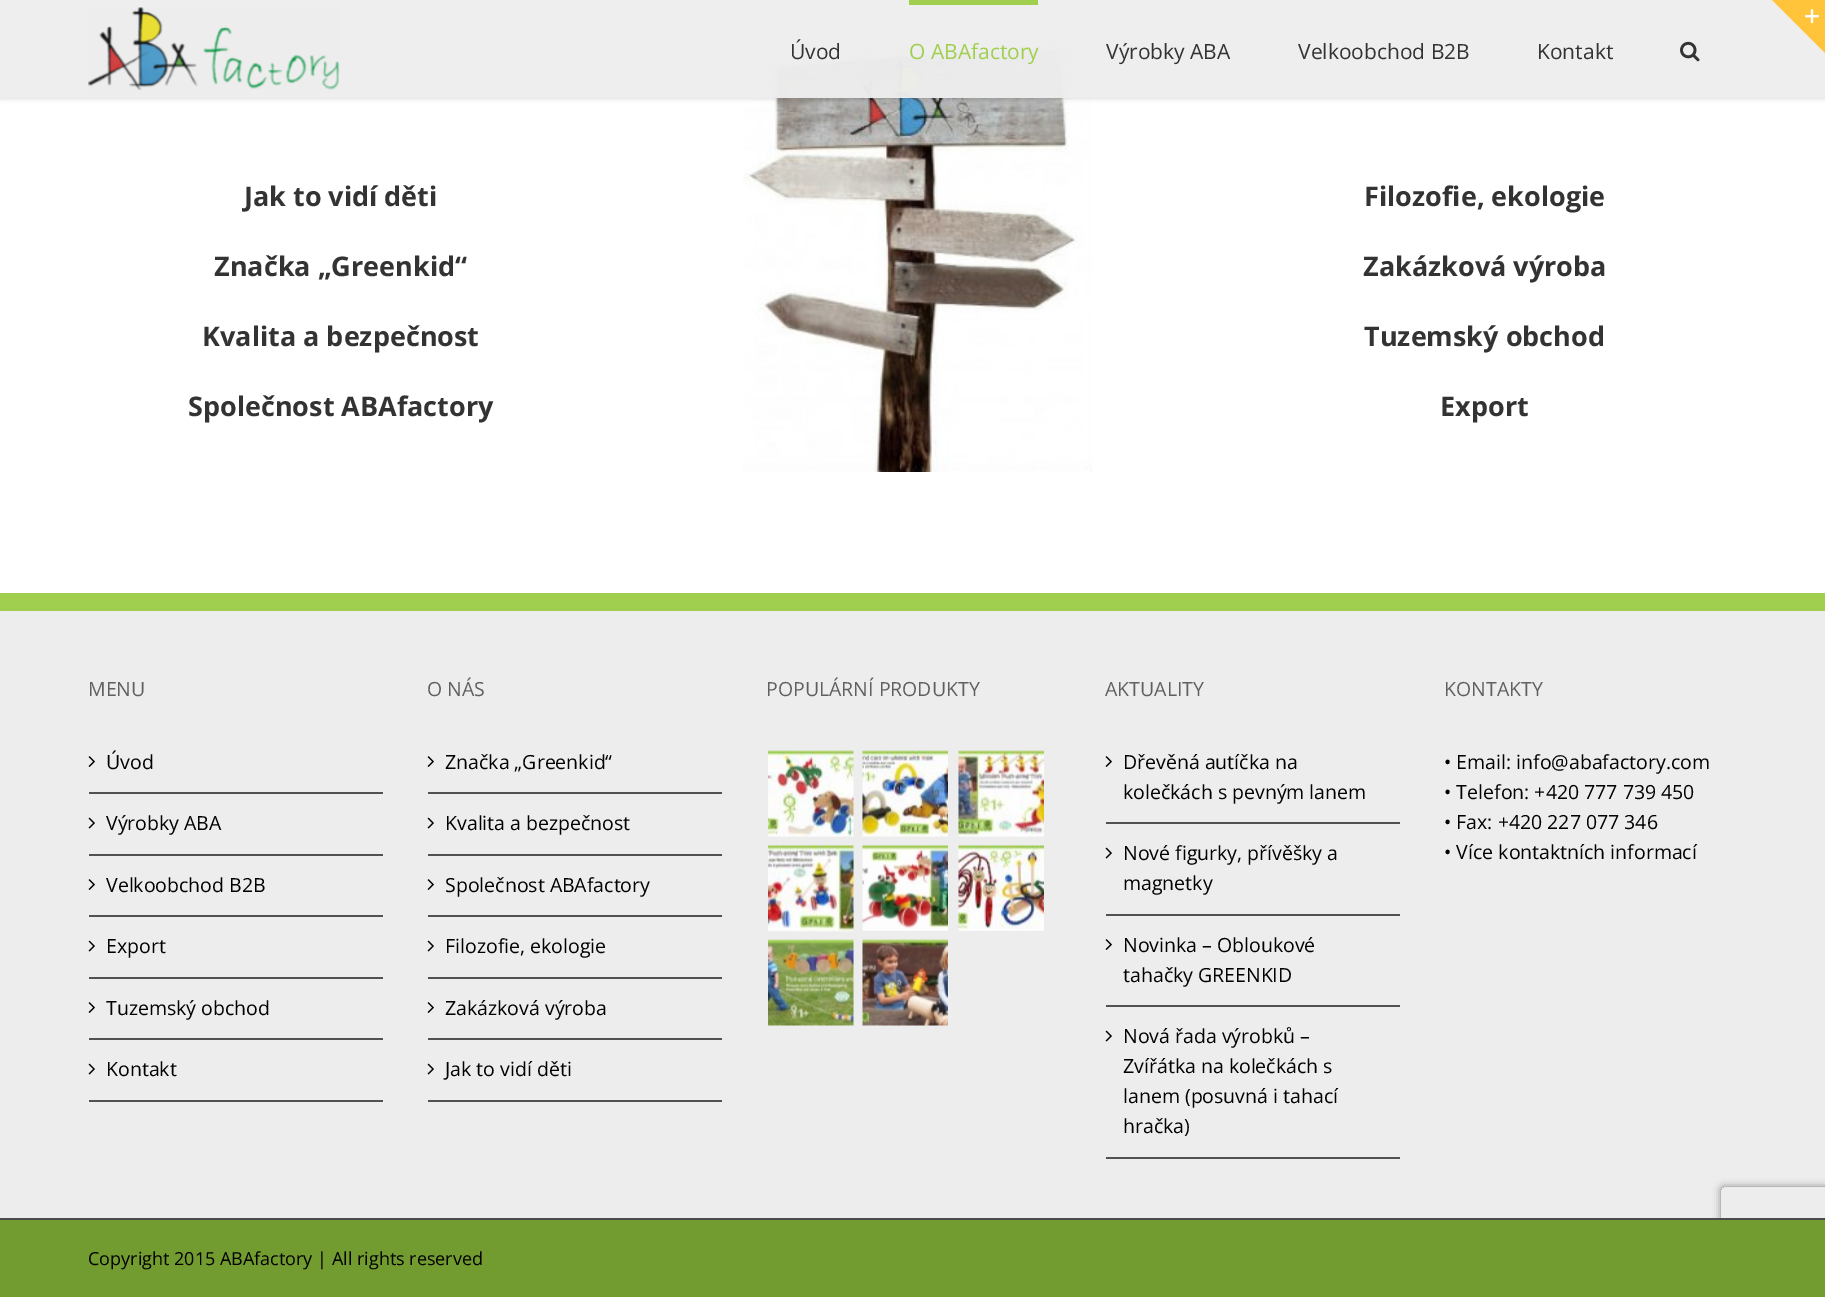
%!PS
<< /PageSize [1825 1297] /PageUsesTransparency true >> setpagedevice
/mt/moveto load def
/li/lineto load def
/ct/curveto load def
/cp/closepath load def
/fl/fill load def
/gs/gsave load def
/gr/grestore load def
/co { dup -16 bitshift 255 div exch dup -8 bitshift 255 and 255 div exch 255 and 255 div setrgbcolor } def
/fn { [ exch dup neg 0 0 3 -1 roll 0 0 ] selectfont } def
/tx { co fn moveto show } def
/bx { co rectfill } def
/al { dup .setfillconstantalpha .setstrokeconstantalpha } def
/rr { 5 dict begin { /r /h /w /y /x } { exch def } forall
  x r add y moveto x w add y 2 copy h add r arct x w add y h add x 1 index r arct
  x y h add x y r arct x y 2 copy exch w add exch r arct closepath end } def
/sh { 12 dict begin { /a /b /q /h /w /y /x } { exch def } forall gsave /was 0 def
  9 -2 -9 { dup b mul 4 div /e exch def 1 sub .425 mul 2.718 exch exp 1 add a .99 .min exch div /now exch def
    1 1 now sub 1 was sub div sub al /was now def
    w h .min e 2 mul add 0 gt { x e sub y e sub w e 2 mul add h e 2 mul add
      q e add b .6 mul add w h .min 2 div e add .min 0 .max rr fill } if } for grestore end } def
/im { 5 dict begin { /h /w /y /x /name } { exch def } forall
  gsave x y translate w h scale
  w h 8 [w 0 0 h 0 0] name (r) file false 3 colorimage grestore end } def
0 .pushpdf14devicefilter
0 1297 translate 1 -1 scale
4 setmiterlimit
0 0 1825 1297 16#FFFFFF bx
(media/4.raw) 743 46 349 426 im
gs
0 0 mt 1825 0 li 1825 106 li 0 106 li cp 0 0 mt 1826 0 li 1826 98 li 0 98 li cp eoclip newpath
16#000000 co
0 2 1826 97 0 2 .12 sh
gr
0.97 al
0 0 1825 98 16#EDEDED bx
1 al
(media/1.raw) 88 7 252 83 im
909 0 129 5 16#A0CE4E bx
(media/2.raw) 1680 41 20 21 im
16#FFC43A co
1772 0 mt 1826 0 li 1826 54 li cp fl
(media/3.raw) 1805 9 14 15 im
0 611 1825 607 16#EDEDED bx
0 593 1825 18 16#A0CE4E bx
89 792 294 2 16#505152 bx
(media/5.raw) 88 756 7 11 im
89 854 294 2 16#505152 bx
(media/6.raw) 88 817 7 12 im
89 915 294 2 16#505152 bx
(media/5.raw) 88 879 7 11 im
89 977 294 2 16#505152 bx
(media/6.raw) 88 940 7 12 im
89 1038 294 2 16#505152 bx
(media/5.raw) 88 1002 7 11 im
89 1100 294 2 16#505152 bx
(media/6.raw) 88 1063 7 12 im
428 792 294 2 16#505152 bx
(media/5.raw) 427 756 7 11 im
428 854 294 2 16#505152 bx
(media/6.raw) 427 817 7 12 im
428 915 294 2 16#505152 bx
(media/5.raw) 427 879 7 11 im
428 977 294 2 16#505152 bx
(media/6.raw) 427 940 7 12 im
428 1038 294 2 16#505152 bx
(media/5.raw) 427 1002 7 11 im
428 1100 294 2 16#505152 bx
(media/6.raw) 427 1063 7 12 im
(media/7.raw) 768 750 86 87 im
(media/8.raw) 862 750 86 87 im
(media/9.raw) 958 750 86 87 im
(media/10.raw) 768 845 86 87 im
(media/11.raw) 862 845 86 86 im
(media/12.raw) 958 845 86 86 im
(media/13.raw) 768 939 86 87 im
(media/14.raw) 862 939 86 87 im
1106 822 294 2 16#505152 bx
(media/5.raw) 1105 756 7 11 im
1106 914 294 2 16#505152 bx
(media/6.raw) 1105 847 7 12 im
1106 1005 294 2 16#505152 bx
(media/5.raw) 1105 939 7 11 im
1106 1157 294 2 16#505152 bx
(media/6.raw) 1105 1030 7 12 im
gs
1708 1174 mt 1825 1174 li 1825 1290 li 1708 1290 li cp 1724 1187 mt 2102 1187 li 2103.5 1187 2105 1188.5 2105 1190 ct 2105 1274 li 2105 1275.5 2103.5 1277 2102 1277 ct 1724 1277 li 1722.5 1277 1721 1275.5 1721 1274 ct 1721 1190 li 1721 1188.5 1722.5 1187 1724 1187 ct cp eoclip newpath
16#808080 co
1721 1187 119 90 3 4 1 sh
gr
0 1220 1825 77 16#729B30 bx
0 1218 1825 2 16#4B4C4D bx
(Úvod) 790 59 /OpenSans-Regular 21 16#333333 tx
(O ABAfactory) 909 59 /OpenSans-Regular 21 16#A0CE4E tx
(Výrobky ABA) 1106 59 /OpenSans-Regular 21 16#333333 tx
(Velkoobchod B2B) 1298 59 /OpenSans-Regular 21 16#333333 tx
(Kontakt) 1537 59 /OpenSans-Regular 21 16#333333 tx
(Jak to vidí děti) 244 206 /OpenSans-Bold 27 16#333333 tx
(Značka „Greenkid“) 214 276 /OpenSans-Bold 27 16#333333 tx
(Kvalita a bezpečnost) 202 346 /OpenSans-Bold 27 16#333333 tx
(Společnost ABAfactory) 188 416 /OpenSans-Bold 27 16#333333 tx
(Filozofie, ekologie) 1364 206 /OpenSans-Bold 27 16#333333 tx
(Zakázková výroba) 1363 276 /OpenSans-Bold 27 16#333333 tx
(Tuzemský obchod) 1364 346 /OpenSans-Bold 27 16#333333 tx
(Export) 1440 416 /OpenSans-Bold 27 16#333333 tx
(MENU) 88 696 /OpenSans-Regular 19.5 16#606060 tx
(Úvod) 106 769 /OpenSans-Regular 19.5 16#000000 tx
(Výrobky ABA) 106 830 /OpenSans-Regular 19.5 16#000000 tx
(Velkoobchod B2B) 106 892 /OpenSans-Regular 19.5 16#000000 tx
(Export) 106 953 /OpenSans-Regular 19.5 16#000000 tx
(Tuzemský obchod) 106 1015 /OpenSans-Regular 19.5 16#000000 tx
(Kontakt) 106 1076 /OpenSans-Regular 19.5 16#000000 tx
(O NÁS) 427 696 /OpenSans-Regular 19.5 16#606060 tx
(Značka „Greenkid“) 445 769 /OpenSans-Regular 19.5 16#000000 tx
(Kvalita a bezpečnost) 445 830 /OpenSans-Regular 19.5 16#000000 tx
(Společnost ABAfactory) 445 892 /OpenSans-Regular 19.5 16#000000 tx
(Filozofie, ekologie) 445 953 /OpenSans-Regular 19.5 16#000000 tx
(Zakázková výroba) 445 1015 /OpenSans-Regular 19.5 16#000000 tx
(Jak to vidí děti) 445 1076 /OpenSans-Regular 19.5 16#000000 tx
(POPULÁRNÍ PRODUKTY) 766 696 /OpenSans-Regular 19.5 16#606060 tx
(AKTUALITY) 1105 696 /OpenSans-Regular 19.5 16#606060 tx
(Dřevěná autíčka na) 1123 769 /OpenSans-Regular 19.5 16#000000 tx
(kolečkách s pevným lanem) 1123 799 /OpenSans-Regular 19.5 16#000000 tx
(Nové figurky, přívěšky a) 1123 860 /OpenSans-Regular 19.5 16#000000 tx
(magnetky) 1123 890 /OpenSans-Regular 19.5 16#000000 tx
(Novinka – Obloukové) 1123 952 /OpenSans-Regular 19.5 16#000000 tx
(tahačky GREENKID) 1123 982 /OpenSans-Regular 19.5 16#000000 tx
(Nová řada výrobků –) 1123 1043 /OpenSans-Regular 19.5 16#000000 tx
(Zvířátka na kolečkách s) 1123 1073 /OpenSans-Regular 19.5 16#000000 tx
(lanem \(posuvná i tahací) 1123 1103 /OpenSans-Regular 19.5 16#000000 tx
(hračka\)) 1123 1133 /OpenSans-Regular 19.5 16#000000 tx
(KONTAKTY) 1444 696 /OpenSans-Regular 19.5 16#606060 tx
(• Email: info@abafactory.com) 1444 769 /OpenSans-Regular 19.5 16#000000 tx
(• Telefon: +420 777 739 450) 1444 799 /OpenSans-Regular 19.5 16#000000 tx
(• Fax: +420 227 077 346) 1444 829 /OpenSans-Regular 19.5 16#000000 tx
(• Více kontaktních informací) 1444 859 /OpenSans-Regular 19.5 16#000000 tx
(Copyright 2015 ABAfactory | All rights reserved) 88 1265 /OpenSans-Regular 18 16#000000 tx
.poppdf14devicefilter showpage
